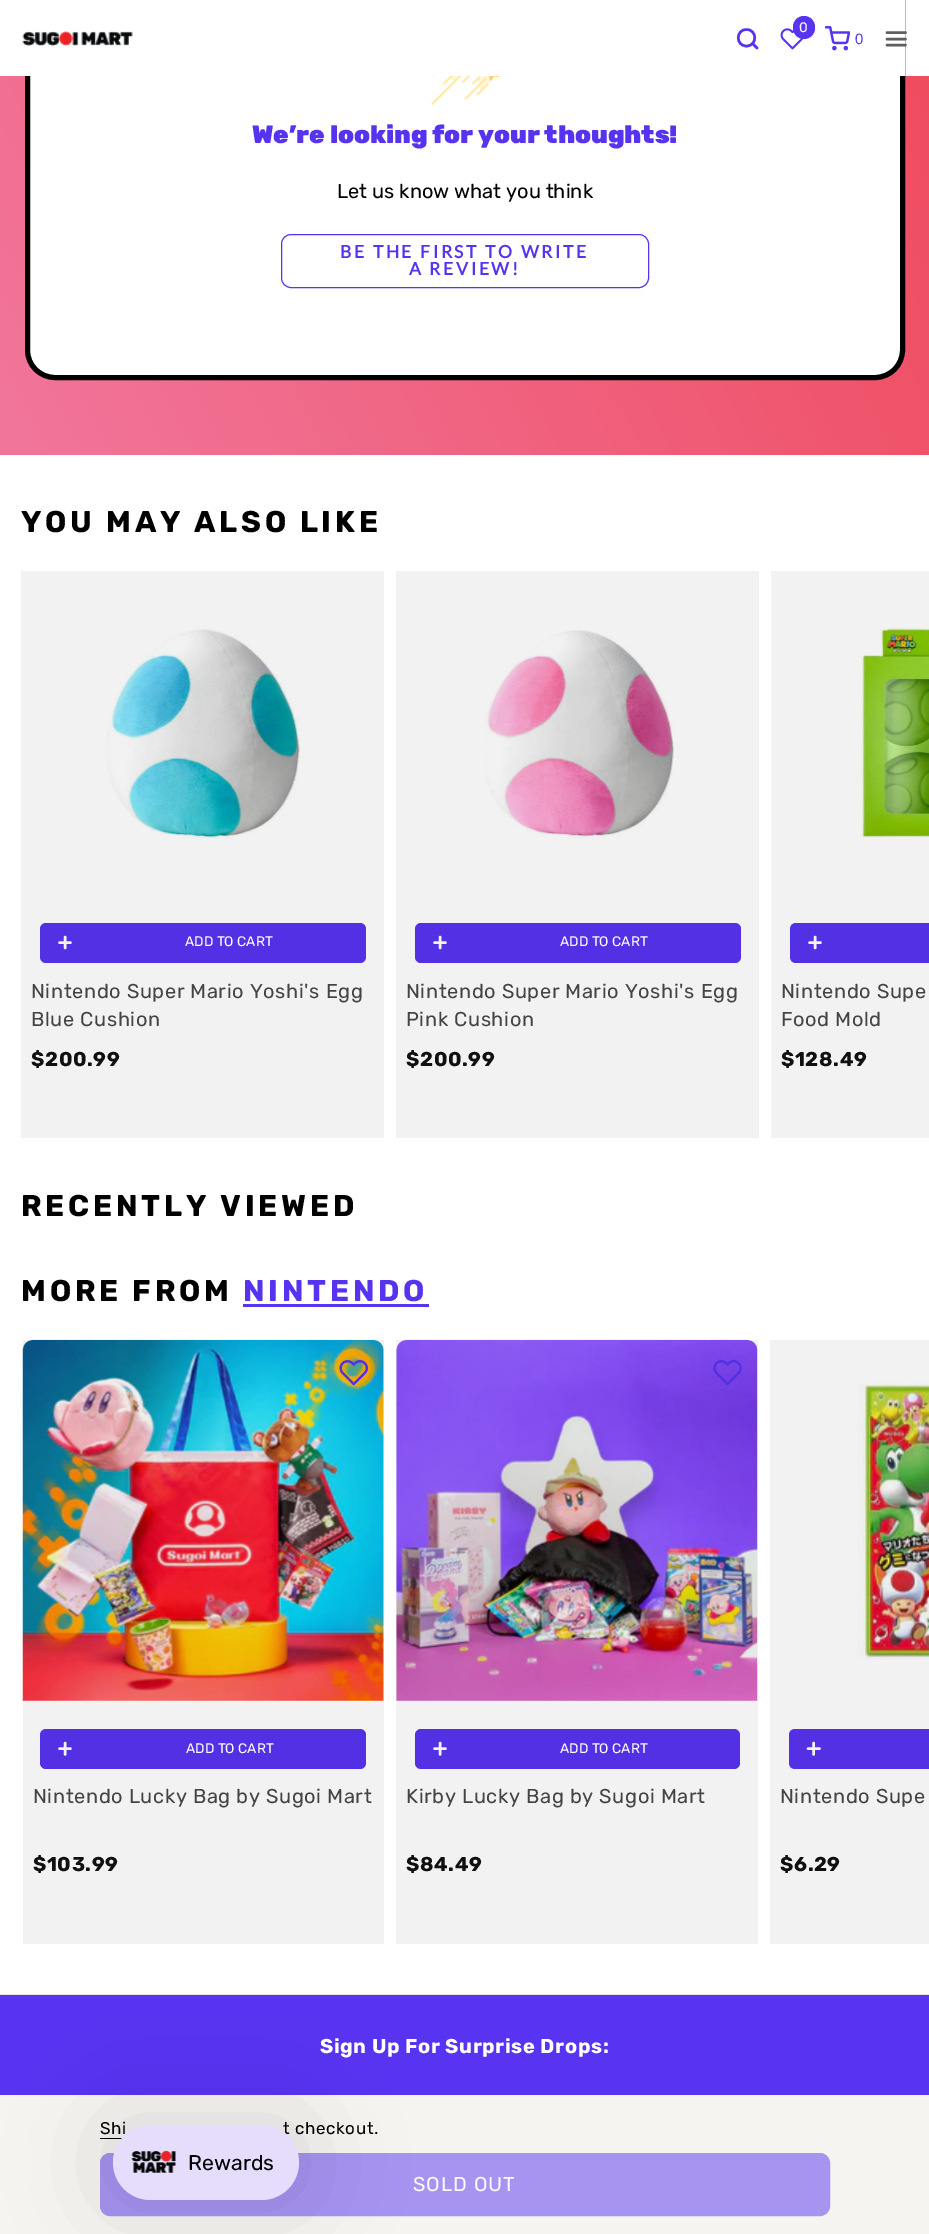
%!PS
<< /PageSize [929 2234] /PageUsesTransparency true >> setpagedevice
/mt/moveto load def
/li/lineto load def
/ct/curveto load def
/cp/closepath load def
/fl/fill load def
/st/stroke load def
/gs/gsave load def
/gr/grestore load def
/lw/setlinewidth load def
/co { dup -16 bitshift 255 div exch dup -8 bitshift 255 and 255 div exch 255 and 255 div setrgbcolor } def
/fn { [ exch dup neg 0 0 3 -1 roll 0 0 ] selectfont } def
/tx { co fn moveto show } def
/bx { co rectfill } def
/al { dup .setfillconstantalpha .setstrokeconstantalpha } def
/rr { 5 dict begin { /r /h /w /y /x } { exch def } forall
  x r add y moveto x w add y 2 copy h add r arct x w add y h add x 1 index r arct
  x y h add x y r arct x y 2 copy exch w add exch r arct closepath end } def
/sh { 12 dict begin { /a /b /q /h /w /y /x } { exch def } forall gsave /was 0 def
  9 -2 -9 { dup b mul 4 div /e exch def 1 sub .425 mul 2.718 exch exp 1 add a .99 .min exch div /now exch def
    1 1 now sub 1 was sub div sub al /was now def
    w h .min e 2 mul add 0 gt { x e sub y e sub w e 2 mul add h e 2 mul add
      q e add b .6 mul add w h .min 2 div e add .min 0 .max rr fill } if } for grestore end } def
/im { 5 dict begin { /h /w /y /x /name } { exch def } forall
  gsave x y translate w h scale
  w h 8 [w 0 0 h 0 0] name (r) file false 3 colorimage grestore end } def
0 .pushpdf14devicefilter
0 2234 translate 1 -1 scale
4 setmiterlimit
0 0 929 2234 16#FFFFFF bx
gs 0 76 mt 929 76 li 929 455 li 0 455 li cp clip newpath
<< /ShadingType 2 /ColorSpace /DeviceRGB /Coords [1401 -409 -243 429] /Extend [true true] /Function << /FunctionType 2 /Domain [0 1] /C0 [.933 .192 .227] /C1 [.949 .498 .659] /N 1 >> >> shfill gr
27.5 -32.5 875 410 27.5 rr gs fl gr
16#000000 co
5 lw
st
25 0 880 76 16#FFFFFF bx
(media/1.raw) 22 31 111 15 im
16#5833F1 co
2.5 lw
1 setlinecap
1 setlinejoin
746.5 46 mt 757.5 46 757.5 29.5 746.5 29.5 ct 735.5 29.5 735.5 46 746.5 46 ct cp 757 48 mt 752.5 43.5 li st
(media/2.raw) 780 28 24 22 im
793 16 22 23 11 rr fl
(media/3.raw) 825 26 25 25 im
16#606060 co
887 39 mt 905.5 39 li 887 32.5 mt 905.5 32.5 li 887 45 mt 905.5 45 li st
(media/4.raw) 431 76 68 29 im
16#5833F1 co
1 lw
0 setlinecap
0 setlinejoin
281.5 234.5 367 53 9.5 rr st
40 923 326 40 6 rr fl
16#FFFFFF co
2.4 lw
1 setlinecap
1 setlinejoin
65 937 mt 65 948 li 59.5 942.5 mt 70.5 942.5 li st
(media/5.raw) 106 629 194 210 im
0.05 al
21 571 363 567 16#000000 bx
1 al
16#5833F1 co
415 923 326 40 6 rr fl
16#FFFFFF co
440 937 mt 440 948 li 434.5 942.5 mt 445.5 942.5 li st
(media/6.raw) 484 630 190 209 im
0.05 al
396 571 363 567 16#000000 bx
1 al
16#5833F1 co
796 923 mt 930 923 li 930 963 li 796 963 li 792.5 963 790 960.5 790 957 ct 790 929 li 790 925.5 792.5 923 796 923 ct cp fl
16#FFFFFF co
815 937 mt 815 948 li 809.5 942.5 mt 820.5 942.5 li st
(media/7.raw) 861 628 68 210 im
0.05 al
771 571 158 567 16#000000 bx
1 al
243 1304 186 3 16#5833F1 bx
(media/9.raw) 22 1339 362 362 im
(media/8.raw) 339 1360 30 26 im
40 1729 326 40 6 rr fl
16#FFFFFF co
65 1743 mt 65 1754.5 li 59.5 1748.5 mt 70.5 1748.5 li st
0.05 al
23 1340 361 604 16#000000 bx
1 al
(media/11.raw) 396 1339 362 362 im
(media/10.raw) 713 1360 29 26 im
16#5833F1 co
415 1729 325 40 6 rr fl
16#FFFFFF co
440 1743 mt 440 1754.5 li 434.5 1748.5 mt 445.5 1748.5 li st
0.05 al
396 1340 362 604 16#000000 bx
1 al
16#5833F1 co
795 1729 mt 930 1729 li 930 1769 li 795 1769 li 791.5 1769 789 1766.5 789 1763 ct 789 1735 li 789 1731.5 791.5 1729 795 1729 ct cp fl
16#FFFFFF co
813.5 1743 mt 813.5 1754.5 li 808 1748.5 mt 819.5 1748.5 li st
(media/12.raw) 857 1383 72 277 im
0.05 al
770 1340 159 604 16#000000 bx
1 al
0 2095 929 139 16#F6F4F1 bx
100 2138 23 1 16#000000 bx
16#A794F1 co
100.5 2153.5 729 62 9.5 rr gs fl gr
1 lw
0 setlinecap
0 setlinejoin
st
0 1995 929 100 16#5833F1 bx
0 1994 929 1 16#E8E8E1 bx
16#000000 co
113 2125 186 75 37.5 50 .12 sh
/Rubik-Regular 13.75 fn
16#FFFFFF co
799 32 mt .6 0 (0) ashow
(0) 855 44 /LiberationSans-Regular 15 16#5733F0 tx
(We’re looking for your thoughts!) 252 143 /Rubik-Black 25 16#5733F0 tx
(Let us know what you think) 337 198 /Rubik-Regular 20 16#000000 tx
/Lato-Bold 17.5 fn
16#5733F0 co
340 258 mt 2.6 0 (BE THE FIRST TO WRITE) ashow
409 275 mt 2.6 0 (A REVIEW!) ashow
/Rubik-Bold 30 fn
16#000000 co
21 532 mt 3.75 0 (YOU MAY ALSO LIKE) ashow
(ADD TO CART) 185 946 /Rubik-Regular 13.75 16#FFFFFF tx
/Rubik-Regular 20 fn
16#444444 co
31 998 mt .6 0 (Nintendo Super Mario Yoshi's Egg) ashow
31 1026 mt .6 0 (Blue Cushion) ashow
/Rubik-Bold 20 fn
16#101010 co
31 1066 mt .6 0 ($200.99) ashow
(ADD TO CART) 560 946 /Rubik-Regular 13.75 16#FFFFFF tx
/Rubik-Regular 20 fn
16#444444 co
406 998 mt .6 0 (Nintendo Super Mario Yoshi's Egg) ashow
406 1026 mt .6 0 (Pink Cushion) ashow
/Rubik-Bold 20 fn
16#101010 co
406 1066 mt .6 0 ($200.99) ashow
/Rubik-Regular 20 fn
16#444444 co
781 998 mt .6 0 (Nintendo Supe) ashow
781 1026 mt .6 0 (Food Mold) ashow
/Rubik-Bold 20 fn
16#101010 co
781 1066 mt .6 0 ($128.49) ashow
/Rubik-Bold 30 fn
16#000000 co
21 1216 mt 3.75 0 (RECENTLY VIEWED) ashow
21 1301 mt 3.75 0 (MORE FROM) ashow
16#5733F0 co
243 1301 mt 3.75 0 (NINTENDO) ashow
(ADD TO CART) 186 1753 /Rubik-Regular 13.75 16#FFFFFF tx
/Rubik-Regular 20 fn
16#444444 co
33 1803 mt .6 0 (Nintendo Lucky Bag by Sugoi Mart) ashow
/Rubik-Bold 20 fn
16#101010 co
33 1871 mt .6 0 ($103.99) ashow
(ADD TO CART) 560 1753 /Rubik-Regular 13.75 16#FFFFFF tx
/Rubik-Regular 20 fn
16#444444 co
406 1803 mt .6 0 (Kirby Lucky Bag by Sugoi Mart) ashow
/Rubik-Bold 20 fn
16#101010 co
406 1871 mt .6 0 ($84.49) ashow
/Rubik-Regular 20 fn
16#444444 co
780 1803 mt .6 0 (Nintendo Supe) ashow
/Rubik-Bold 20 fn
16#101010 co
780 1871 mt .6 0 ($6.29) ashow
/Rubik-Regular 17 fn
16#000000 co
100 2134 mt .6 0 (Shi) ashow
283 2134 mt .6 0 (t checkout.) ashow
/Rubik-Regular 20 fn
16#FBFAF8 co
413 2191 mt 1 0 (SOLD OUT) ashow
/Rubik-Bold 20 fn
16#FFFFFF co
320 2053 mt .6 0 (Sign Up For Surprise Drops:) ashow
16#E6DDFC co
113 2125 186 75 37.5 rr fl
(media/13.raw) 131 2150 45 23 im
(Rewards) 188 2170 /Rubik-Regular 21.25 16#000000 tx
.poppdf14devicefilter showpage
